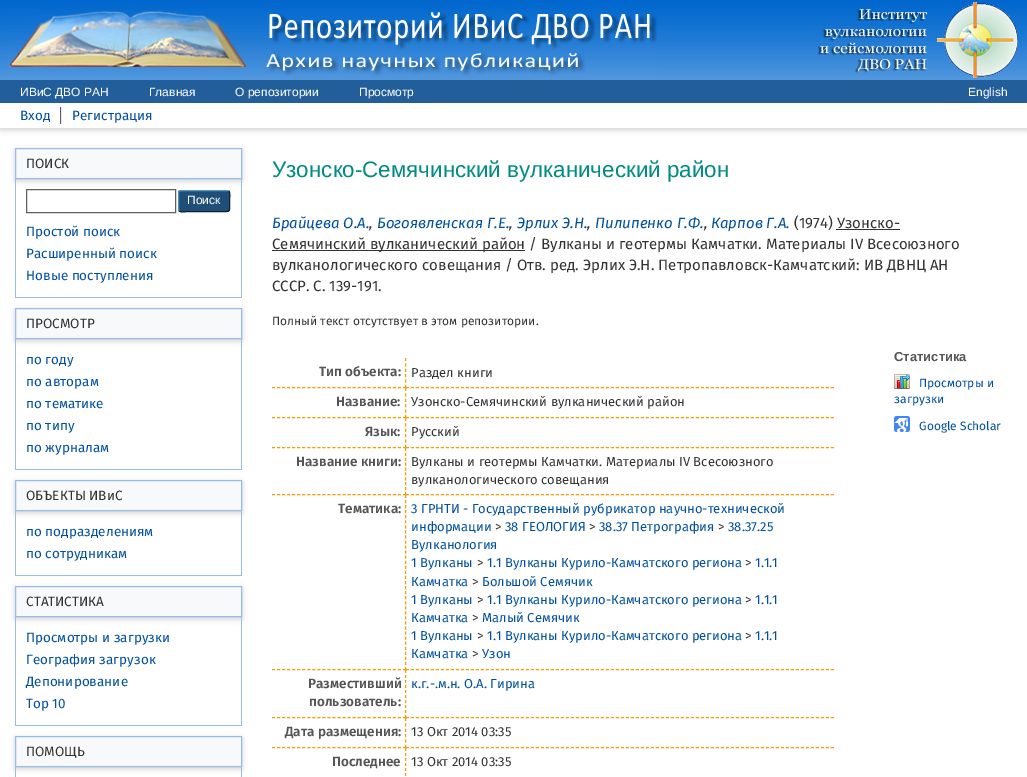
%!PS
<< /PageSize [1027 777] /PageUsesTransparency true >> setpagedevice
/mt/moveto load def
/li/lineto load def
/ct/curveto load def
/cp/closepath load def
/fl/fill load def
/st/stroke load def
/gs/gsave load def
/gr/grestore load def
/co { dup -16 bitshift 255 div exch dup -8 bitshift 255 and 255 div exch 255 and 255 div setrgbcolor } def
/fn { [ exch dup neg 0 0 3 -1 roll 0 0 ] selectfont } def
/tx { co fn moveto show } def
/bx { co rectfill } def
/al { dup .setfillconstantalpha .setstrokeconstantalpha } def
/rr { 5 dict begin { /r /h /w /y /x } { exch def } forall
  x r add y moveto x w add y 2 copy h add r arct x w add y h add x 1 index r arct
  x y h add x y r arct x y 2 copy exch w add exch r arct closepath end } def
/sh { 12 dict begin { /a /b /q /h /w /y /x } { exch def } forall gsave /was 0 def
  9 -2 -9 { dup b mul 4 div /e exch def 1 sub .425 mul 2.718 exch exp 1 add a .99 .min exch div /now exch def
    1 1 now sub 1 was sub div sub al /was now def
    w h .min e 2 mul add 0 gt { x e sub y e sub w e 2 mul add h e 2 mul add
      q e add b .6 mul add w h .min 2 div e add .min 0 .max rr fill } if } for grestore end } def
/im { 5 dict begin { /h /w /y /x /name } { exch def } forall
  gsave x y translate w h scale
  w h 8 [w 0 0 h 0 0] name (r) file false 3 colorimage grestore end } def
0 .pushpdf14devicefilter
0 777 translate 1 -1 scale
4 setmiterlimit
0 0 1027 777 16#FFFFFF bx
0 80 1027 23 16#225E99 bx
(media/1.raw) 0 0 1027 80 im
(media/2.raw) 8 10 649 66 im
(media/3.raw) 817 2 201 77 im
16#646464 co
0 105 1027 25 0 3 .3 sh
1 102 433 1 16#225E99 bx
948 102 78 1 16#225E99 bx
0 103 1027 25 16#FFFFFF bx
60 107 1 17 16#606060 bx
61 107 1 17 16#E8E8E8 bx
16#646464 co
15 150 227 31 0 3 .3 sh
16#F8F9FA co
15.5 148.5 mt 241.5 148.5 li 241.5 178.5 li 15.5 178.5 li cp gs fl gr
16#99BBE8 co
st
241 179 1 119 16#99BBE8 bx
15 297 227 1 16#99BBE8 bx
15 179 1 119 16#99BBE8 bx
16#606060 co
26.5 189.5 149 23 rectstroke
16#1F4F76 co
178 190 52 22 3 rr fl
16#5B97C7 co
179 191 mt 181 190.5 li 227 190.5 li 229 191 li st
16#0D2131 co
229 191 mt 230.5 193 229.5 199 229.5 201 ct 229.5 213 231.5 211.5 219.5 211.5 ct 188.5 211.5 li 185.5 211.5 181.5 213 179 211 ct st
16#5287B3 co
179 211 mt 179 210.5 178.5 209.5 178.5 209 ct 178.5 193 li 178.5 192.5 179 191.5 179 191 ct st
16#646464 co
15 310 227 31 0 3 .3 sh
16#F8F9FA co
15.5 308.5 mt 241.5 308.5 li 241.5 338.5 li 15.5 338.5 li cp gs fl gr
16#99BBE8 co
st
241 339 1 131 16#99BBE8 bx
15 469 227 1 16#99BBE8 bx
15 339 1 131 16#99BBE8 bx
16#646464 co
15 482 227 31 0 3 .3 sh
16#F8F9FA co
15.5 480.5 mt 241.5 480.5 li 241.5 510.5 li 15.5 510.5 li cp gs fl gr
16#99BBE8 co
st
241 511 1 65 16#99BBE8 bx
15 575 227 1 16#99BBE8 bx
15 511 1 65 16#99BBE8 bx
16#646464 co
15 588 227 31 0 3 .3 sh
16#F8F9FA co
15.5 586.5 mt 241.5 586.5 li 241.5 616.5 li 15.5 616.5 li cp gs fl gr
16#99BBE8 co
st
241 617 1 109 16#99BBE8 bx
15 725 227 1 16#99BBE8 bx
15 617 1 109 16#99BBE8 bx
16#646464 co
15 738 227 31 0 3 .3 sh
16#F8F9FA co
15.5 736.5 mt 241.5 736.5 li 241.5 766.5 li 15.5 766.5 li cp gs fl gr
16#99BBE8 co
st
241 767 1 10 16#99BBE8 bx
15 767 1 10 16#99BBE8 bx
836 229 64 1 16#333333 bx
272 250 253 1 16#333333 bx
16#FF9900 co
[3 2.4] 0 setdash
405.5 358 mt 405.5 388 li st
[3 2.04] 0 setdash
272 387.5 mt 406 387.5 li st
[3 2] 0 setdash
406 387.5 mt 834 387.5 li st
[3 2.4] 0 setdash
405.5 388 mt 405.5 418 li st
[3 2.04] 0 setdash
272 417.5 mt 406 417.5 li st
[3 2] 0 setdash
406 417.5 mt 834 417.5 li st
[3 2.4] 0 setdash
405.5 418 mt 405.5 448 li st
[3 2.04] 0 setdash
272 447.5 mt 406 447.5 li st
[3 2] 0 setdash
406 447.5 mt 834 447.5 li st
[3 1.89] 0 setdash
405.5 448 mt 405.5 495 li st
[3 2.04] 0 setdash
272 494.5 mt 406 494.5 li st
[3 2] 0 setdash
406 494.5 mt 834 494.5 li st
[3 2.06] 0 setdash
405.5 495 mt 405.5 670 li st
[3 2.04] 0 setdash
272 669.5 mt 406 669.5 li st
[3 2] 0 setdash
406 669.5 mt 834 669.5 li st
405.5 670 mt 405.5 718 li st
[3 2.04] 0 setdash
272 717.5 mt 406 717.5 li st
[3 2] 0 setdash
406 717.5 mt 834 717.5 li st
[3 2.4] 0 setdash
405.5 718 mt 405.5 748 li st
[3 2.04] 0 setdash
272 747.5 mt 406 747.5 li st
[3 2] 0 setdash
406 747.5 mt 834 747.5 li st
405.5 748 mt 405.5 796 li st
(media/4.raw) 894 374 16 15 im
(media/5.raw) 894 416 16 16 im
(ИВиС ДВО РАН) 20 96 /LiberationSans-Regular 12 16#FFFFFF tx
(Главная) 149 96 /LiberationSans-Regular 12 16#FFFFFF tx
(О репозитории) 235 96 /LiberationSans-Regular 12 16#FFFFFF tx
(Просмотр) 359 96 /LiberationSans-Regular 12 16#FFFFFF tx
(English) 968 96 /LiberationSans-Regular 12 16#FFFFFF tx
(Вход) 20 120 /FiraSans-Regular 13.5 16#00509F tx
(Регистрация) 72 120 /FiraSans-Regular 13.5 16#00509F tx
(ПОИСК) 26 168 /FiraSans-Regular 13.5 16#333333 tx
(Поиск) 187 204 /LiberationSans-Regular 12 16#FFFFFF tx
(Простой поиск) 26 236 /FiraSans-Regular 13.5 16#00509F tx
(Расширенный поиск) 26 258 /FiraSans-Regular 13.5 16#00509F tx
(Новые поступления) 26 280 /FiraSans-Regular 13.5 16#00509F tx
(ПРОСМОТР) 26 328 /FiraSans-Regular 13.5 16#333333 tx
(по году) 26 364 /FiraSans-Regular 13.5 16#00509F tx
(по авторам) 26 386 /FiraSans-Regular 13.5 16#00509F tx
(по тематике) 26 408 /FiraSans-Regular 13.5 16#00509F tx
(по типу) 26 430 /FiraSans-Regular 13.5 16#00509F tx
(по журналам) 26 452 /FiraSans-Regular 13.5 16#00509F tx
(ОБЪЕКТЫ ИВиС) 26 500 /FiraSans-Regular 13.5 16#333333 tx
(по подразделениям) 26 536 /FiraSans-Regular 13.5 16#00509F tx
(по сотрудникам) 26 558 /FiraSans-Regular 13.5 16#00509F tx
(СТАТИСТИКА) 26 606 /FiraSans-Regular 13.5 16#333333 tx
(Просмотры и загрузки) 26 642 /FiraSans-Regular 13.5 16#00509F tx
(География загрузок) 26 664 /FiraSans-Regular 13.5 16#00509F tx
(Депонирование) 26 686 /FiraSans-Regular 13.5 16#00509F tx
(Top 10) 26 708 /FiraSans-Regular 13.5 16#00509F tx
(ПОМОЩЬ) 26 756 /FiraSans-Regular 13.5 16#333333 tx
(Узонско-Семячинский вулканический район) 272 177 /LiberationSans-Regular 22.4 16#008B83 tx
(Брайцева О.А.) 272 228 /FiraSans-Italic 15 16#00509F tx
(,) 369 228 /FiraSans-Italic 15 16#333333 tx
(Богоявленская Г.Е.) 377 228 /FiraSans-Italic 15 16#00509F tx
(,) 509 228 /FiraSans-Italic 15 16#333333 tx
(Эрлих Э.Н.) 517 228 /FiraSans-Italic 15 16#00509F tx
(,) 587 228 /FiraSans-Italic 15 16#333333 tx
(Пилипенко Г.Ф.) 595 228 /FiraSans-Italic 15 16#00509F tx
(,) 704 228 /FiraSans-Italic 15 16#333333 tx
(Карпов Г.А.) 711 228 /FiraSans-Italic 15 16#00509F tx
(\(1974\) Узонско-) 794 228 /FiraSans-Regular 15 16#333333 tx
(Семячинский вулканический район / Вулканы и геотермы Камчатки. Материалы IV Всесоюзного) 272 249 /FiraSans-Regular 15 16#333333 tx
(вулканологического совещания / Отв. ред. Эрлих Э.Н. Петропавловск-Камчатский: ИВ ДВНЦ АН) 272 270 /FiraSans-Regular 15 16#333333 tx
(СССР. С. 139-191.) 272 291 /FiraSans-Regular 15 16#333333 tx
(Полный текст отсутствует в этом репозитории.) 272 325 /FiraSans-Regular 12 16#333333 tx
(Тип объекта:) 319 376 /FiraSans-SemiBold 13.5 16#555555 tx
(Раздел книги) 411 377 /FiraSans-Regular 13 16#333333 tx
(Название:) 336 406 /FiraSans-SemiBold 13.5 16#555555 tx
(Узонско-Семячинский вулканический район) 411 406 /FiraSans-Regular 13 16#333333 tx
(Язык:) 365 436 /FiraSans-SemiBold 13.5 16#555555 tx
(Русский) 411 436 /FiraSans-Regular 13 16#333333 tx
(Название книги:) 296 466 /FiraSans-SemiBold 13.5 16#555555 tx
(Вулканы и геотермы Камчатки. Материалы IV Всесоюзного) 411 466 /FiraSans-Regular 13 16#333333 tx
(вулканологического совещания) 411 484 /FiraSans-Regular 13 16#333333 tx
(Тематика:) 338 513 /FiraSans-SemiBold 13.5 16#555555 tx
(3 ГРНТИ - Государственный рубрикатор научно-технической) 411 513 /FiraSans-Regular 13 16#00509F tx
(информации) 411 531 /FiraSans-Regular 13 16#00509F tx
(>) 495 531 /FiraSans-Regular 13 16#333333 tx
(38 ГЕОЛОГИЯ) 505 531 /FiraSans-Regular 13 16#00509F tx
(>) 589 531 /FiraSans-Regular 13 16#333333 tx
(38.37 Петрография) 599 531 /FiraSans-Regular 13 16#00509F tx
(>) 718 531 /FiraSans-Regular 13 16#333333 tx
(38.37.25) 728 531 /FiraSans-Regular 13 16#00509F tx
(Вулканология) 411 549 /FiraSans-Regular 13 16#00509F tx
(1 Вулканы) 411 567 /FiraSans-Regular 13 16#00509F tx
(>) 477 567 /FiraSans-Regular 13 16#333333 tx
(1.1 Вулканы Курило-Камчатского региона) 487 567 /FiraSans-Regular 13 16#00509F tx
(>) 745 567 /FiraSans-Regular 13 16#333333 tx
(1.1.1) 755 567 /FiraSans-Regular 13 16#00509F tx
(Камчатка) 411 586 /FiraSans-Regular 13 16#00509F tx
(>) 472 586 /FiraSans-Regular 13 16#333333 tx
(Большой Семячик) 482 586 /FiraSans-Regular 13 16#00509F tx
(1 Вулканы) 411 604 /FiraSans-Regular 13 16#00509F tx
(>) 477 604 /FiraSans-Regular 13 16#333333 tx
(1.1 Вулканы Курило-Камчатского региона) 487 604 /FiraSans-Regular 13 16#00509F tx
(>) 745 604 /FiraSans-Regular 13 16#333333 tx
(1.1.1) 755 604 /FiraSans-Regular 13 16#00509F tx
(Камчатка) 411 622 /FiraSans-Regular 13 16#00509F tx
(>) 472 622 /FiraSans-Regular 13 16#333333 tx
(Малый Семячик) 482 622 /FiraSans-Regular 13 16#00509F tx
(1 Вулканы) 411 640 /FiraSans-Regular 13 16#00509F tx
(>) 477 640 /FiraSans-Regular 13 16#333333 tx
(1.1 Вулканы Курило-Камчатского региона) 487 640 /FiraSans-Regular 13 16#00509F tx
(>) 745 640 /FiraSans-Regular 13 16#333333 tx
(1.1.1) 755 640 /FiraSans-Regular 13 16#00509F tx
(Камчатка) 411 658 /FiraSans-Regular 13 16#00509F tx
(>) 472 658 /FiraSans-Regular 13 16#333333 tx
(Узон) 482 658 /FiraSans-Regular 13 16#00509F tx
(Разместивший) 308 688 /FiraSans-SemiBold 13.5 16#555555 tx
(пользователь:) 309 706 /FiraSans-SemiBold 13.5 16#555555 tx
(к.г.-.м.н. О.А. Гирина) 411 688 /FiraSans-Regular 13 16#00509F tx
(Дата размещения:) 285 736 /FiraSans-SemiBold 13.5 16#555555 tx
(13 Окт 2014 03:35) 411 736 /FiraSans-Regular 13 16#333333 tx
(Последнее) 332 766 /FiraSans-SemiBold 13.5 16#555555 tx
(13 Окт 2014 03:35) 411 766 /FiraSans-Regular 13 16#333333 tx
(Статистика) 894 361 /LiberationSans-Bold 13 16#555555 tx
(Просмотры и) 919 387 /FiraSans-Regular 12 16#00509F tx
(загрузки) 894 403 /FiraSans-Regular 12 16#00509F tx
(Google Scholar) 919 430 /FiraSans-Regular 12 16#00509F tx
.poppdf14devicefilter showpage
